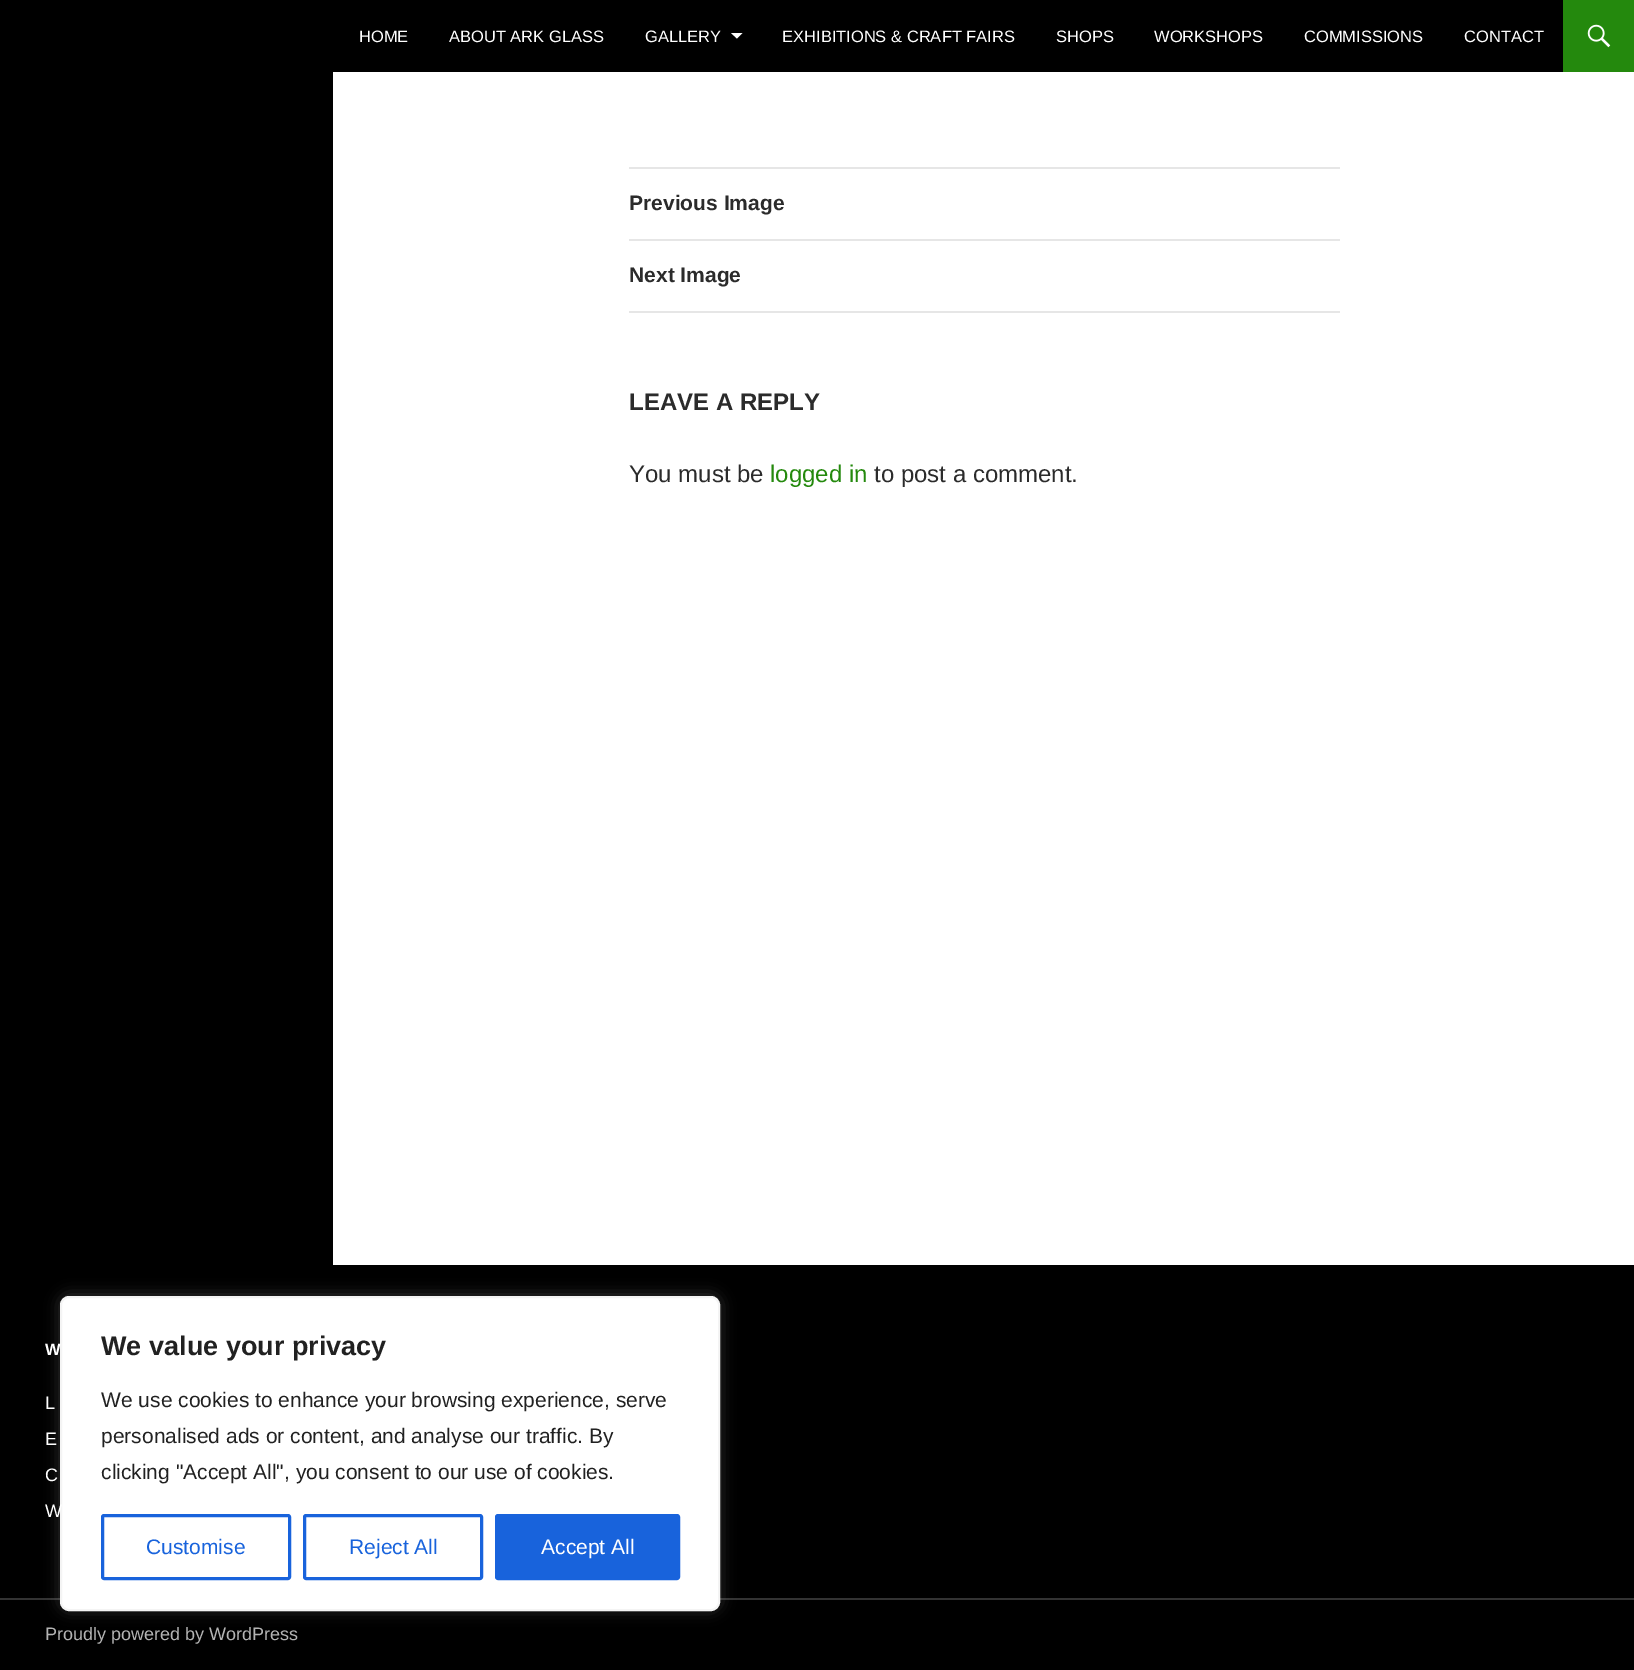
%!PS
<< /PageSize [1634 1670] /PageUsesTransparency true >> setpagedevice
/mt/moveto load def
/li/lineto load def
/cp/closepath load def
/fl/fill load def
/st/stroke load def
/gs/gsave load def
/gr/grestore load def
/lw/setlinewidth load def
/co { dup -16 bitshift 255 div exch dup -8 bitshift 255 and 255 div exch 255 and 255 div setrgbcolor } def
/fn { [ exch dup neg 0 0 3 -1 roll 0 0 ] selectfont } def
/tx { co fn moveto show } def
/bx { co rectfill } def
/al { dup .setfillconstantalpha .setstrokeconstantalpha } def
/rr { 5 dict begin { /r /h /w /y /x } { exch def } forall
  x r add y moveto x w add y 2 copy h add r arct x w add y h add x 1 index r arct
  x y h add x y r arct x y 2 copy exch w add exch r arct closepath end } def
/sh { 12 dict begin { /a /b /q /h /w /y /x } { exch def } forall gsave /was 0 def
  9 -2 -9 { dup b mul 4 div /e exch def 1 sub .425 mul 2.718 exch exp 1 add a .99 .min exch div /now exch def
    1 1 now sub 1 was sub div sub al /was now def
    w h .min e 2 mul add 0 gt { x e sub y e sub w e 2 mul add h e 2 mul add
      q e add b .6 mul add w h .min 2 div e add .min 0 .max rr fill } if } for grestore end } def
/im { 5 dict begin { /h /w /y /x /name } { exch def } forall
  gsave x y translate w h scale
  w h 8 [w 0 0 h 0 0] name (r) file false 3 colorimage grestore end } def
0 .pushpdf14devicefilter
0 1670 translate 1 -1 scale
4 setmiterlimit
0 0 1634 1670 16#FFFFFF bx
0 0 1563 72 16#000000 bx
16#FFFFFF co
731 33 mt 742.5 33 li 737 38.5 li cp fl
1563 0 71 72 16#24890D bx
(media/1.raw) 1587 24 24 24 im
0 72 333 1193 16#000000 bx
629 167 711 2 16#E6E6E6 bx
629 239 711 2 16#E6E6E6 bx
629 311 711 2 16#E6E6E6 bx
0 1265 1634 405 16#000000 bx
0 1598 1634 2 16#333333 bx
16#ACABAB co
60 1295 660 315 9 7.5 .3 sh
16#FFFFFF co
61 1297 658 313 8 rr gs fl gr
16#F4F4F4 co
2 lw
st
16#1863DC co
3 lw
102.5 1515.5 187 63 1.5 rr st
304.5 1515.5 177 63 1.5 rr st
496.5 1515.5 182 63 1.5 rr gs fl gr
st
(HOME) 359 42 /LiberationSans-Regular 16.5 16#FFFFFF tx
(ABOUT ARK GLASS) 449 42 /LiberationSans-Regular 16.5 16#FFFFFF tx
(GALLERY) 645 42 /LiberationSans-Regular 16.5 16#FFFFFF tx
(EXHIBITIONS & CRAFT FAIRS) 782 42 /LiberationSans-Regular 16.5 16#FFFFFF tx
(SHOPS) 1056 42 /LiberationSans-Regular 16.5 16#FFFFFF tx
(WORKSHOPS) 1154 42 /LiberationSans-Regular 16.5 16#FFFFFF tx
(COMMISSIONS) 1304 42 /LiberationSans-Regular 16.5 16#FFFFFF tx
(CONTACT) 1464 42 /LiberationSans-Regular 16.5 16#FFFFFF tx
(Previous Image) 629 210 /LiberationSans-Bold 21 16#2B2B2B tx
(Next Image) 629 282 /LiberationSans-Bold 21 16#2B2B2B tx
(LEAVE A REPLY) 629 410 /LiberationSans-Bold 24 16#2B2B2B tx
(You must be) 629 482 /LiberationSans-Regular 24 16#2B2B2B tx
(logged in) 770 482 /LiberationSans-Regular 24 16#24890D tx
(to post a comment.) 874 482 /LiberationSans-Regular 24 16#2B2B2B tx
(W) 45 1355 /LiberationSans-Bold 16.5 16#FFFFFF tx
(L) 45 1409 /LiberationSans-Regular 18 16#FFFFFF tx
(E) 45 1445 /LiberationSans-Regular 18 16#FFFFFF tx
(C) 45 1481 /LiberationSans-Regular 18 16#FFFFFF tx
(W) 45 1517 /LiberationSans-Regular 18 16#FFFFFF tx
(Proudly powered by WordPress) 45 1640 /LiberationSans-Regular 18 16#B3B3B3 tx
(We value your privacy) 101 1355 /LiberationSans-Bold 27 16#212121 tx
(We use cookies to enhance your browsing experience, serve) 101 1407 /LiberationSans-Regular 21 16#212121 tx
(personalised ads or content, and analyse our traffic. By) 101 1443 /LiberationSans-Regular 21 16#212121 tx
(clicking "Accept All", you consent to our use of cookies.) 101 1479 /LiberationSans-Regular 21 16#212121 tx
(Customise) 146 1554 /LiberationSans-Regular 21 16#1863DC tx
(Reject All) 349 1554 /LiberationSans-Regular 21 16#1863DC tx
(Accept All) 541 1554 /LiberationSans-Regular 21 16#FFFFFF tx
.poppdf14devicefilter showpage
